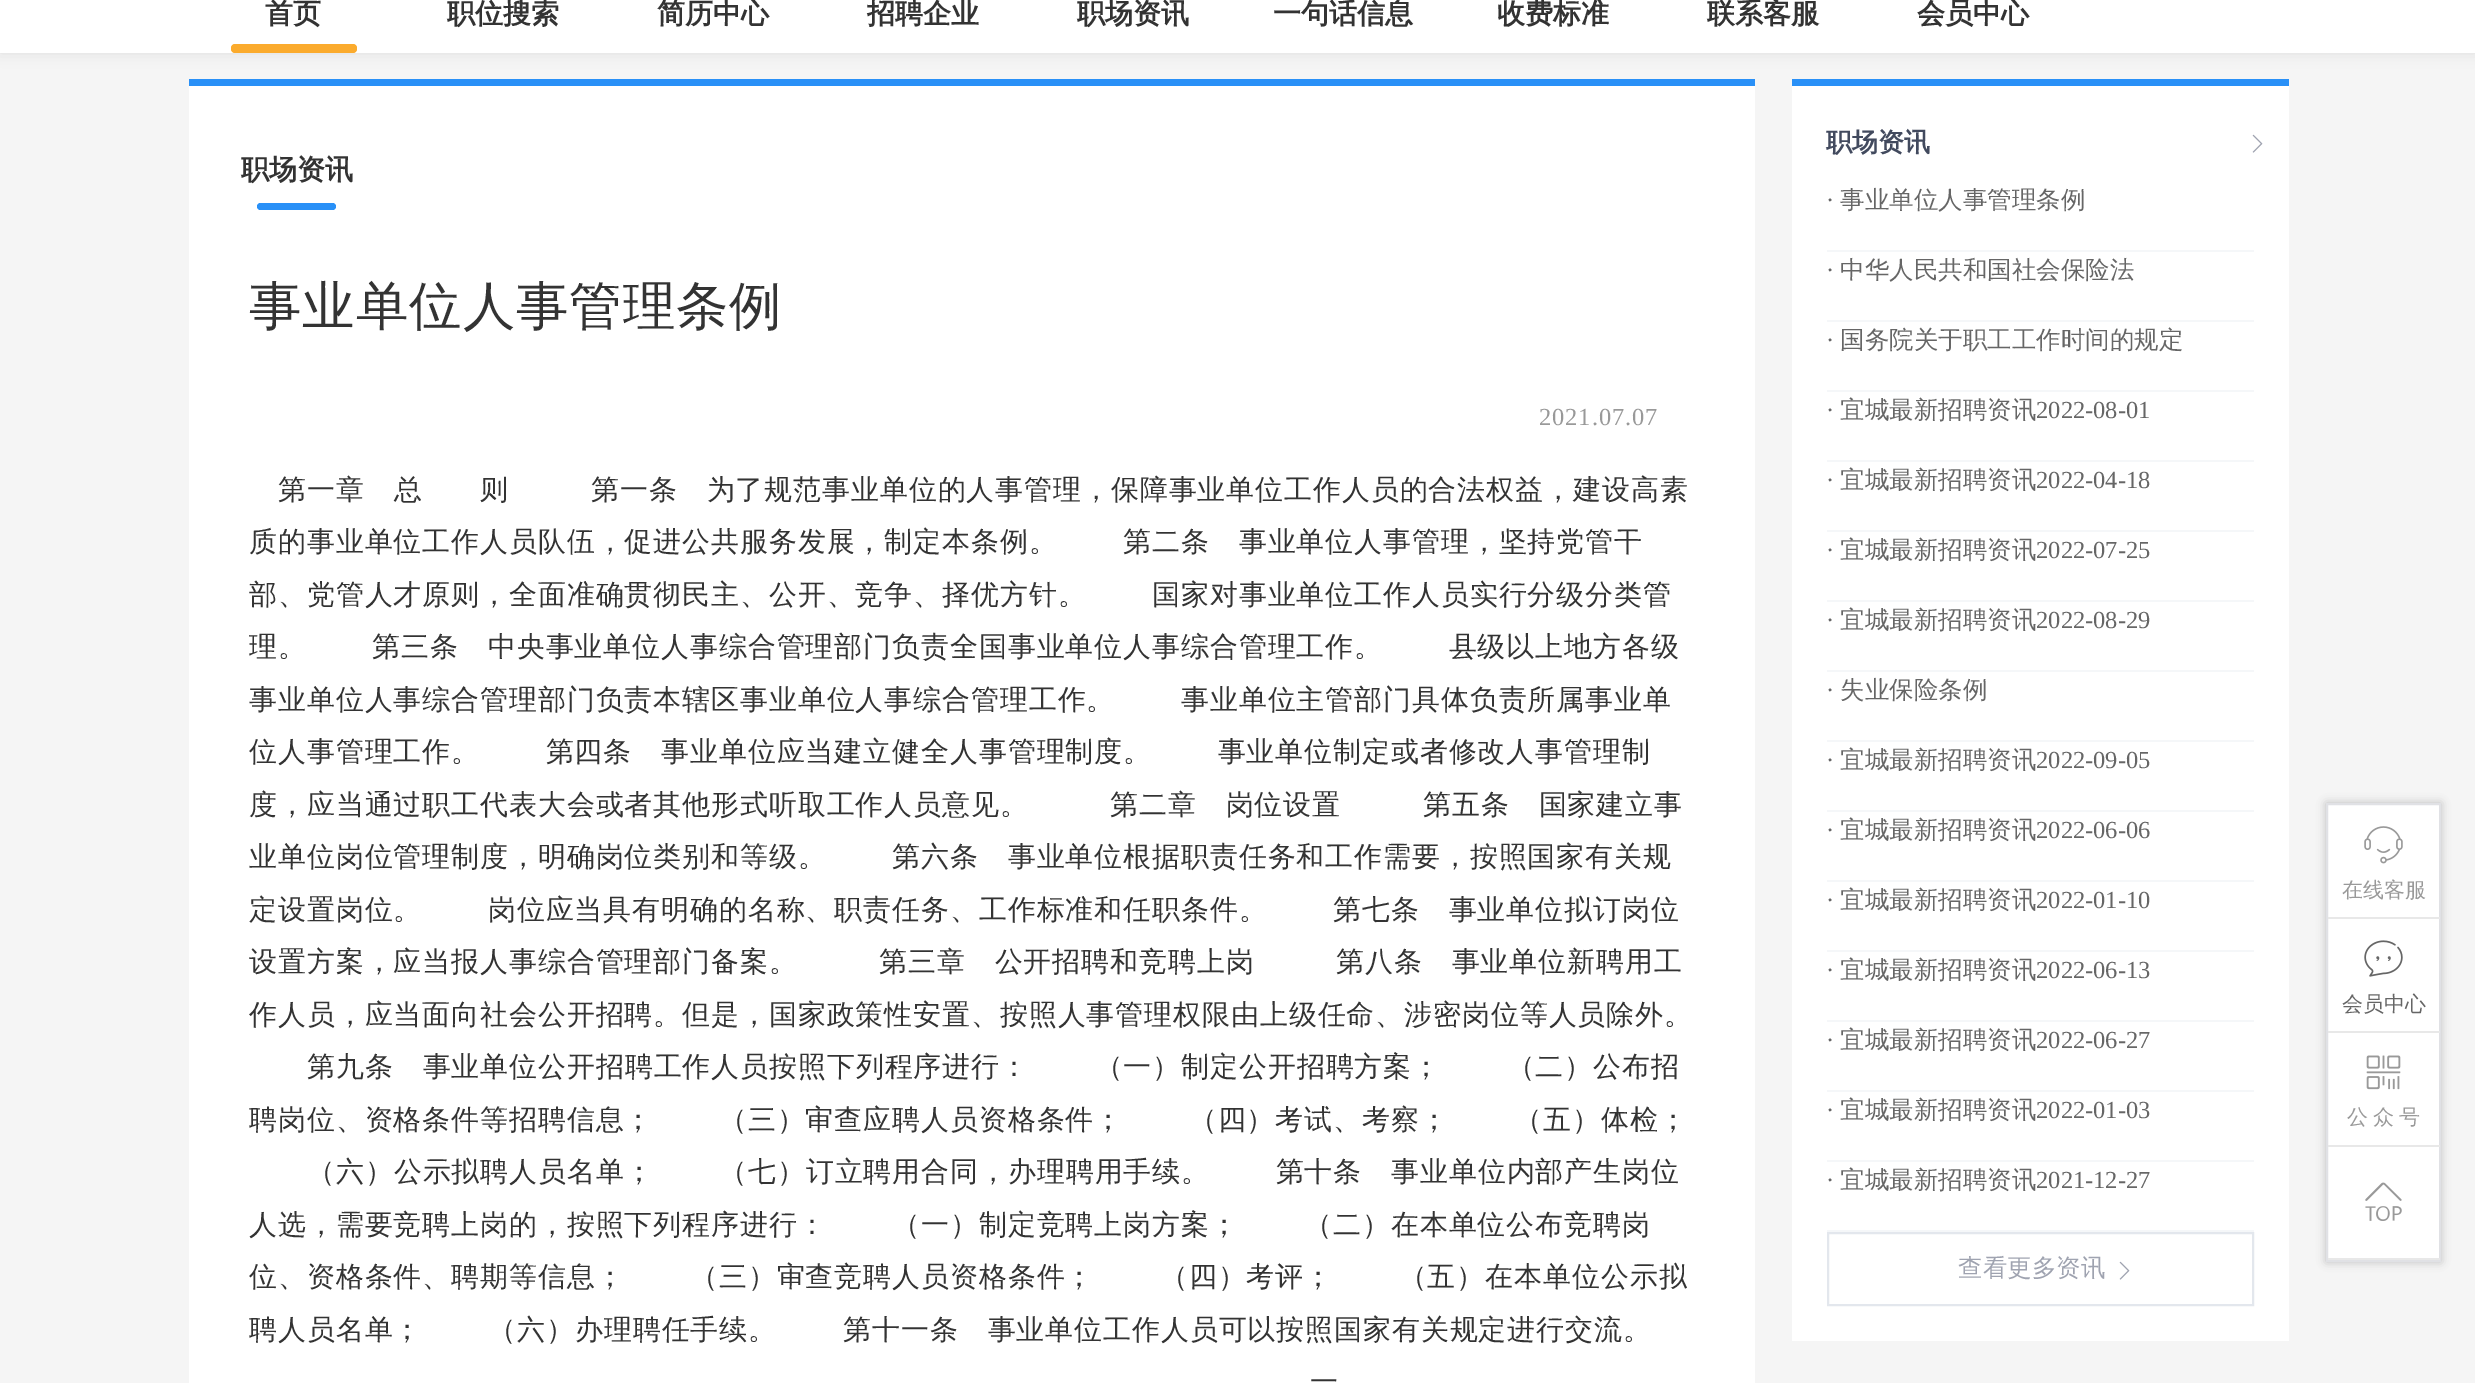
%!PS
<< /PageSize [2475 1383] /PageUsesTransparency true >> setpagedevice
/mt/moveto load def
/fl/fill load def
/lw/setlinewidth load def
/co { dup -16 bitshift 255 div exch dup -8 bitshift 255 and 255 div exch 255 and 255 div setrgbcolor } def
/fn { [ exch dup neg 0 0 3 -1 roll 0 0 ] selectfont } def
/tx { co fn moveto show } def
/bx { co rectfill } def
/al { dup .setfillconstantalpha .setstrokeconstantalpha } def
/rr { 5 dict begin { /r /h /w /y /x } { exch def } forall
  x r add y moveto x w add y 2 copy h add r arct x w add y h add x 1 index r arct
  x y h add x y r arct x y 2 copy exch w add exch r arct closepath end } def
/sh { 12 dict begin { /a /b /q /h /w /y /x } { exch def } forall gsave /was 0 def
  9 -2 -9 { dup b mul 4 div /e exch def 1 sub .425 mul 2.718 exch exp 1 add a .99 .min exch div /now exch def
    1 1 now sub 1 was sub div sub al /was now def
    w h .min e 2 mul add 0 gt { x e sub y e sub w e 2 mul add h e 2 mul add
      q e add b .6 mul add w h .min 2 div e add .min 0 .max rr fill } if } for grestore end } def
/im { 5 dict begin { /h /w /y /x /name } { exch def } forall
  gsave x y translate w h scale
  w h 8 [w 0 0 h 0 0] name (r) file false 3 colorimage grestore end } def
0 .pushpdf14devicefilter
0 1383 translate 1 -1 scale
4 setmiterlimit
0 0 2475 1383 16#F5F5F5 bx
16#DDDDDD co
0 -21 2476 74 0 7 1 sh
0 0 2475 53 16#FFFFFF bx
16#FBAB2D co
231 44 126 9 4 rr fl
16#6E6E6E co
2326 803 115 459 0 4.5 .4 sh
2328 805 111 453 16#FFFFFF bx
16#E0E1E5 co
2 lw
2327 804 113 457 rectstroke
2328 917 112 2 16#E8E8E8 bx
(media/1.raw) 2364 826 39 38 im
2328 1031 112 2 16#E8E8E8 bx
(media/2.raw) 2364 940 39 37 im
2328 1145 112 2 16#E8E8E8 bx
(media/3.raw) 2366 1055 35 35 im
2328 1258 112 2 16#E8E8E8 bx
(media/4.raw) 2365 1182 37 39 im
189 79 1566 7 16#2990F7 bx
189 86 1566 1297 16#FFFFFF bx
16#2990F7 co
257 203 79 7 3.5 rr fl
1792 79 497 7 16#2990F7 bx
1792 86 497 1255 16#FFFFFF bx
(media/5.raw) 2252 134 11 19 im
1827 250 427 2 16#F5F7F9 bx
1827 320 427 2 16#F5F7F9 bx
1827 390 427 2 16#F5F7F9 bx
1827 460 427 2 16#F5F7F9 bx
1827 530 427 2 16#F5F7F9 bx
1827 600 427 2 16#F5F7F9 bx
1827 670 427 2 16#F5F7F9 bx
1827 740 427 2 16#F5F7F9 bx
1827 810 427 2 16#F5F7F9 bx
1827 880 427 2 16#F5F7F9 bx
1827 950 427 2 16#F5F7F9 bx
1827 1020 427 2 16#F5F7F9 bx
1827 1090 427 2 16#F5F7F9 bx
1827 1160 427 2 16#F5F7F9 bx
1827 1230 427 2 16#F5F7F9 bx
16#E3E7ED co
1828 1233 425 72 rectstroke
(media/5.raw) 2119 1261 11 19 im
(首页) 265 23 /WenQuanYiZenHei-Bold 28 16#333333 tx
(职位搜索) 447 23 /WenQuanYiZenHei-Bold 28 16#333333 tx
(简历中心) 657 23 /WenQuanYiZenHei-Bold 28 16#333333 tx
(招聘企业) 867 23 /WenQuanYiZenHei-Bold 28 16#333333 tx
(职场资讯) 1077 23 /WenQuanYiZenHei-Bold 28 16#333333 tx
(一句话信息) 1273 23 /WenQuanYiZenHei-Bold 28 16#333333 tx
(收费标准) 1497 23 /WenQuanYiZenHei-Bold 28 16#333333 tx
(联系客服) 1707 23 /WenQuanYiZenHei-Bold 28 16#333333 tx
(会员中心) 1917 23 /WenQuanYiZenHei-Bold 28 16#333333 tx
(在线客服) 2342 897 /WenQuanYiZenHei-Medium 21 16#999999 tx
(会员中心) 2342 1011 /WenQuanYiZenHei-Medium 21 16#666666 tx
(公) 2347 1124 /WenQuanYiZenHei-Medium 21 16#999999 tx
(众) 2373 1124 /WenQuanYiZenHei-Medium 21 16#999999 tx
(号) 2399 1124 /WenQuanYiZenHei-Medium 21 16#999999 tx
(职场资讯) 241 179 /WenQuanYiZenHei-Bold 28 16#333333 tx
/WenQuanYiZenHei-Medium 52.5 fn
249 324 mt .88 0 (事业单位人事管理条例) ashow
/LiberationSerif-Regular 24.5 fn
16#999999 co
1539 425 mt .88 0 (2021.07.07) ashow
/WenQuanYiZenHei-Medium 28 fn
16#333333 co
278 499 mt .88 0 (第一章　总　　则) ashow
591 499 mt .88 0 (第一条　为了规范事业单位的人事管理，保障事业单位工作人员的合法权益，建设高素) ashow
249 551 mt -1.5 0 32 .88 0 (质的事业单位工作人员队伍，促进公共服务发展，制定本条例。 　　第二条　事业单位人事管理，坚持党管干) awidthshow
249 604 mt -1.5 0 32 .88 0 (部、党管人才原则，全面准确贯彻民主、公开、竞争、择优方针。 　　国家对事业单位工作人员实行分级分类管) awidthshow
249 656 mt -1.5 0 32 .88 0 (理。 　　第三条　中央事业单位人事综合管理部门负责全国事业单位人事综合管理工作。 　　县级以上地方各级) awidthshow
249 709 mt -1.5 0 32 .88 0 (事业单位人事综合管理部门负责本辖区事业单位人事综合管理工作。 　　事业单位主管部门具体负责所属事业单) awidthshow
249 761 mt -1.5 0 32 .88 0 (位人事管理工作。 　　第四条　事业单位应当建立健全人事管理制度。 　　事业单位制定或者修改人事管理制) awidthshow
249 814 mt .88 0 (度，应当通过职工代表大会或者其他形式听取工作人员意见。) ashow
1110 814 mt .88 0 (第二章　岗位设置) ashow
1423 814 mt .88 0 (第五条　国家建立事) ashow
249 866 mt -1.5 0 32 .88 0 (业单位岗位管理制度，明确岗位类别和等级。 　　第六条　事业单位根据职责任务和工作需要，按照国家有关规) awidthshow
249 919 mt -1.5 0 32 .88 0 (定设置岗位。 　　岗位应当具有明确的名称、职责任务、工作标准和任职条件。 　　第七条　事业单位拟订岗位) awidthshow
249 971 mt .88 0 (设置方案，应当报人事综合管理部门备案。) ashow
879 971 mt .88 0 (第三章　公开招聘和竞聘上岗) ashow
1336 971 mt .88 0 (第八条　事业单位新聘用工) ashow
249 1024 mt .88 0 (作人员，应当面向社会公开招聘。但是，国家政策性安置、按照人事管理权限由上级任命、涉密岗位等人员除外。) ashow
307 1076 mt -1.5 0 32 .88 0 (第九条　事业单位公开招聘工作人员按照下列程序进行： 　　（一）制定公开招聘方案； 　　（二）公布招) awidthshow
249 1129 mt -1.5 0 32 .88 0 (聘岗位、资格条件等招聘信息； 　　（三）审查应聘人员资格条件； 　　（四）考试、考察； 　　（五）体检；) awidthshow
307 1181 mt -1.5 0 32 .88 0 (（六）公示拟聘人员名单； 　　（七）订立聘用合同，办理聘用手续。 　　第十条　事业单位内部产生岗位) awidthshow
249 1234 mt -1.5 0 32 .88 0 (人选，需要竞聘上岗的，按照下列程序进行： 　　（一）制定竞聘上岗方案； 　　（二）在本单位公布竞聘岗) awidthshow
249 1286 mt -1.5 0 32 .88 0 (位、资格条件、聘期等信息； 　　（三）审查竞聘人员资格条件； 　　（四）考评； 　　（五）在本单位公示拟) awidthshow
249 1339 mt -1 0 32 .88 0 (聘人员名单； 　　（六）办理聘任手续。 　　第十一条　事业单位工作人员可以按照国家有关规定进行交流。) awidthshow
1310 1391 mt .88 0 (一) ashow
(职场资讯) 1826 151 /WenQuanYiZenHei-Bold 26 16#424A5E tx
(·) 1826 208 /LiberationSerif-Regular 24.5 16#666666 tx
(事业单位人事管理条例) 1840 208 /WenQuanYiZenHei-Medium 24.5 16#666666 tx
(·) 1826 278 /LiberationSerif-Regular 24.5 16#666666 tx
(中华人民共和国社会保险法) 1840 278 /WenQuanYiZenHei-Medium 24.5 16#666666 tx
(·) 1826 348 /LiberationSerif-Regular 24.5 16#666666 tx
(国务院关于职工工作时间的规定) 1840 348 /WenQuanYiZenHei-Medium 24.5 16#666666 tx
(·) 1826 418 /LiberationSerif-Regular 24.5 16#666666 tx
(宜城最新招聘资讯) 1840 418 /WenQuanYiZenHei-Medium 24.5 16#666666 tx
(2022-08-01) 2036 418 /LiberationSerif-Regular 24.5 16#666666 tx
(·) 1826 488 /LiberationSerif-Regular 24.5 16#666666 tx
(宜城最新招聘资讯) 1840 488 /WenQuanYiZenHei-Medium 24.5 16#666666 tx
(2022-04-18) 2036 488 /LiberationSerif-Regular 24.5 16#666666 tx
(·) 1826 558 /LiberationSerif-Regular 24.5 16#666666 tx
(宜城最新招聘资讯) 1840 558 /WenQuanYiZenHei-Medium 24.5 16#666666 tx
(2022-07-25) 2036 558 /LiberationSerif-Regular 24.5 16#666666 tx
(·) 1826 628 /LiberationSerif-Regular 24.5 16#666666 tx
(宜城最新招聘资讯) 1840 628 /WenQuanYiZenHei-Medium 24.5 16#666666 tx
(2022-08-29) 2036 628 /LiberationSerif-Regular 24.5 16#666666 tx
(·) 1826 698 /LiberationSerif-Regular 24.5 16#666666 tx
(失业保险条例) 1840 698 /WenQuanYiZenHei-Medium 24.5 16#666666 tx
(·) 1826 768 /LiberationSerif-Regular 24.5 16#666666 tx
(宜城最新招聘资讯) 1840 768 /WenQuanYiZenHei-Medium 24.5 16#666666 tx
(2022-09-05) 2036 768 /LiberationSerif-Regular 24.5 16#666666 tx
(·) 1826 838 /LiberationSerif-Regular 24.5 16#666666 tx
(宜城最新招聘资讯) 1840 838 /WenQuanYiZenHei-Medium 24.5 16#666666 tx
(2022-06-06) 2036 838 /LiberationSerif-Regular 24.5 16#666666 tx
(·) 1826 908 /LiberationSerif-Regular 24.5 16#666666 tx
(宜城最新招聘资讯) 1840 908 /WenQuanYiZenHei-Medium 24.5 16#666666 tx
(2022-01-10) 2036 908 /LiberationSerif-Regular 24.5 16#666666 tx
(·) 1826 978 /LiberationSerif-Regular 24.5 16#666666 tx
(宜城最新招聘资讯) 1840 978 /WenQuanYiZenHei-Medium 24.5 16#666666 tx
(2022-06-13) 2036 978 /LiberationSerif-Regular 24.5 16#666666 tx
(·) 1826 1048 /LiberationSerif-Regular 24.5 16#666666 tx
(宜城最新招聘资讯) 1840 1048 /WenQuanYiZenHei-Medium 24.5 16#666666 tx
(2022-06-27) 2036 1048 /LiberationSerif-Regular 24.5 16#666666 tx
(·) 1826 1118 /LiberationSerif-Regular 24.5 16#666666 tx
(宜城最新招聘资讯) 1840 1118 /WenQuanYiZenHei-Medium 24.5 16#666666 tx
(2022-01-03) 2036 1118 /LiberationSerif-Regular 24.5 16#666666 tx
(·) 1826 1188 /LiberationSerif-Regular 24.5 16#666666 tx
(宜城最新招聘资讯) 1840 1188 /WenQuanYiZenHei-Medium 24.5 16#666666 tx
(2021-12-27) 2036 1188 /LiberationSerif-Regular 24.5 16#666666 tx
(查看更多资讯) 1958 1276 /WenQuanYiZenHei-Medium 24.5 16#9FA3B0 tx
.poppdf14devicefilter showpage
